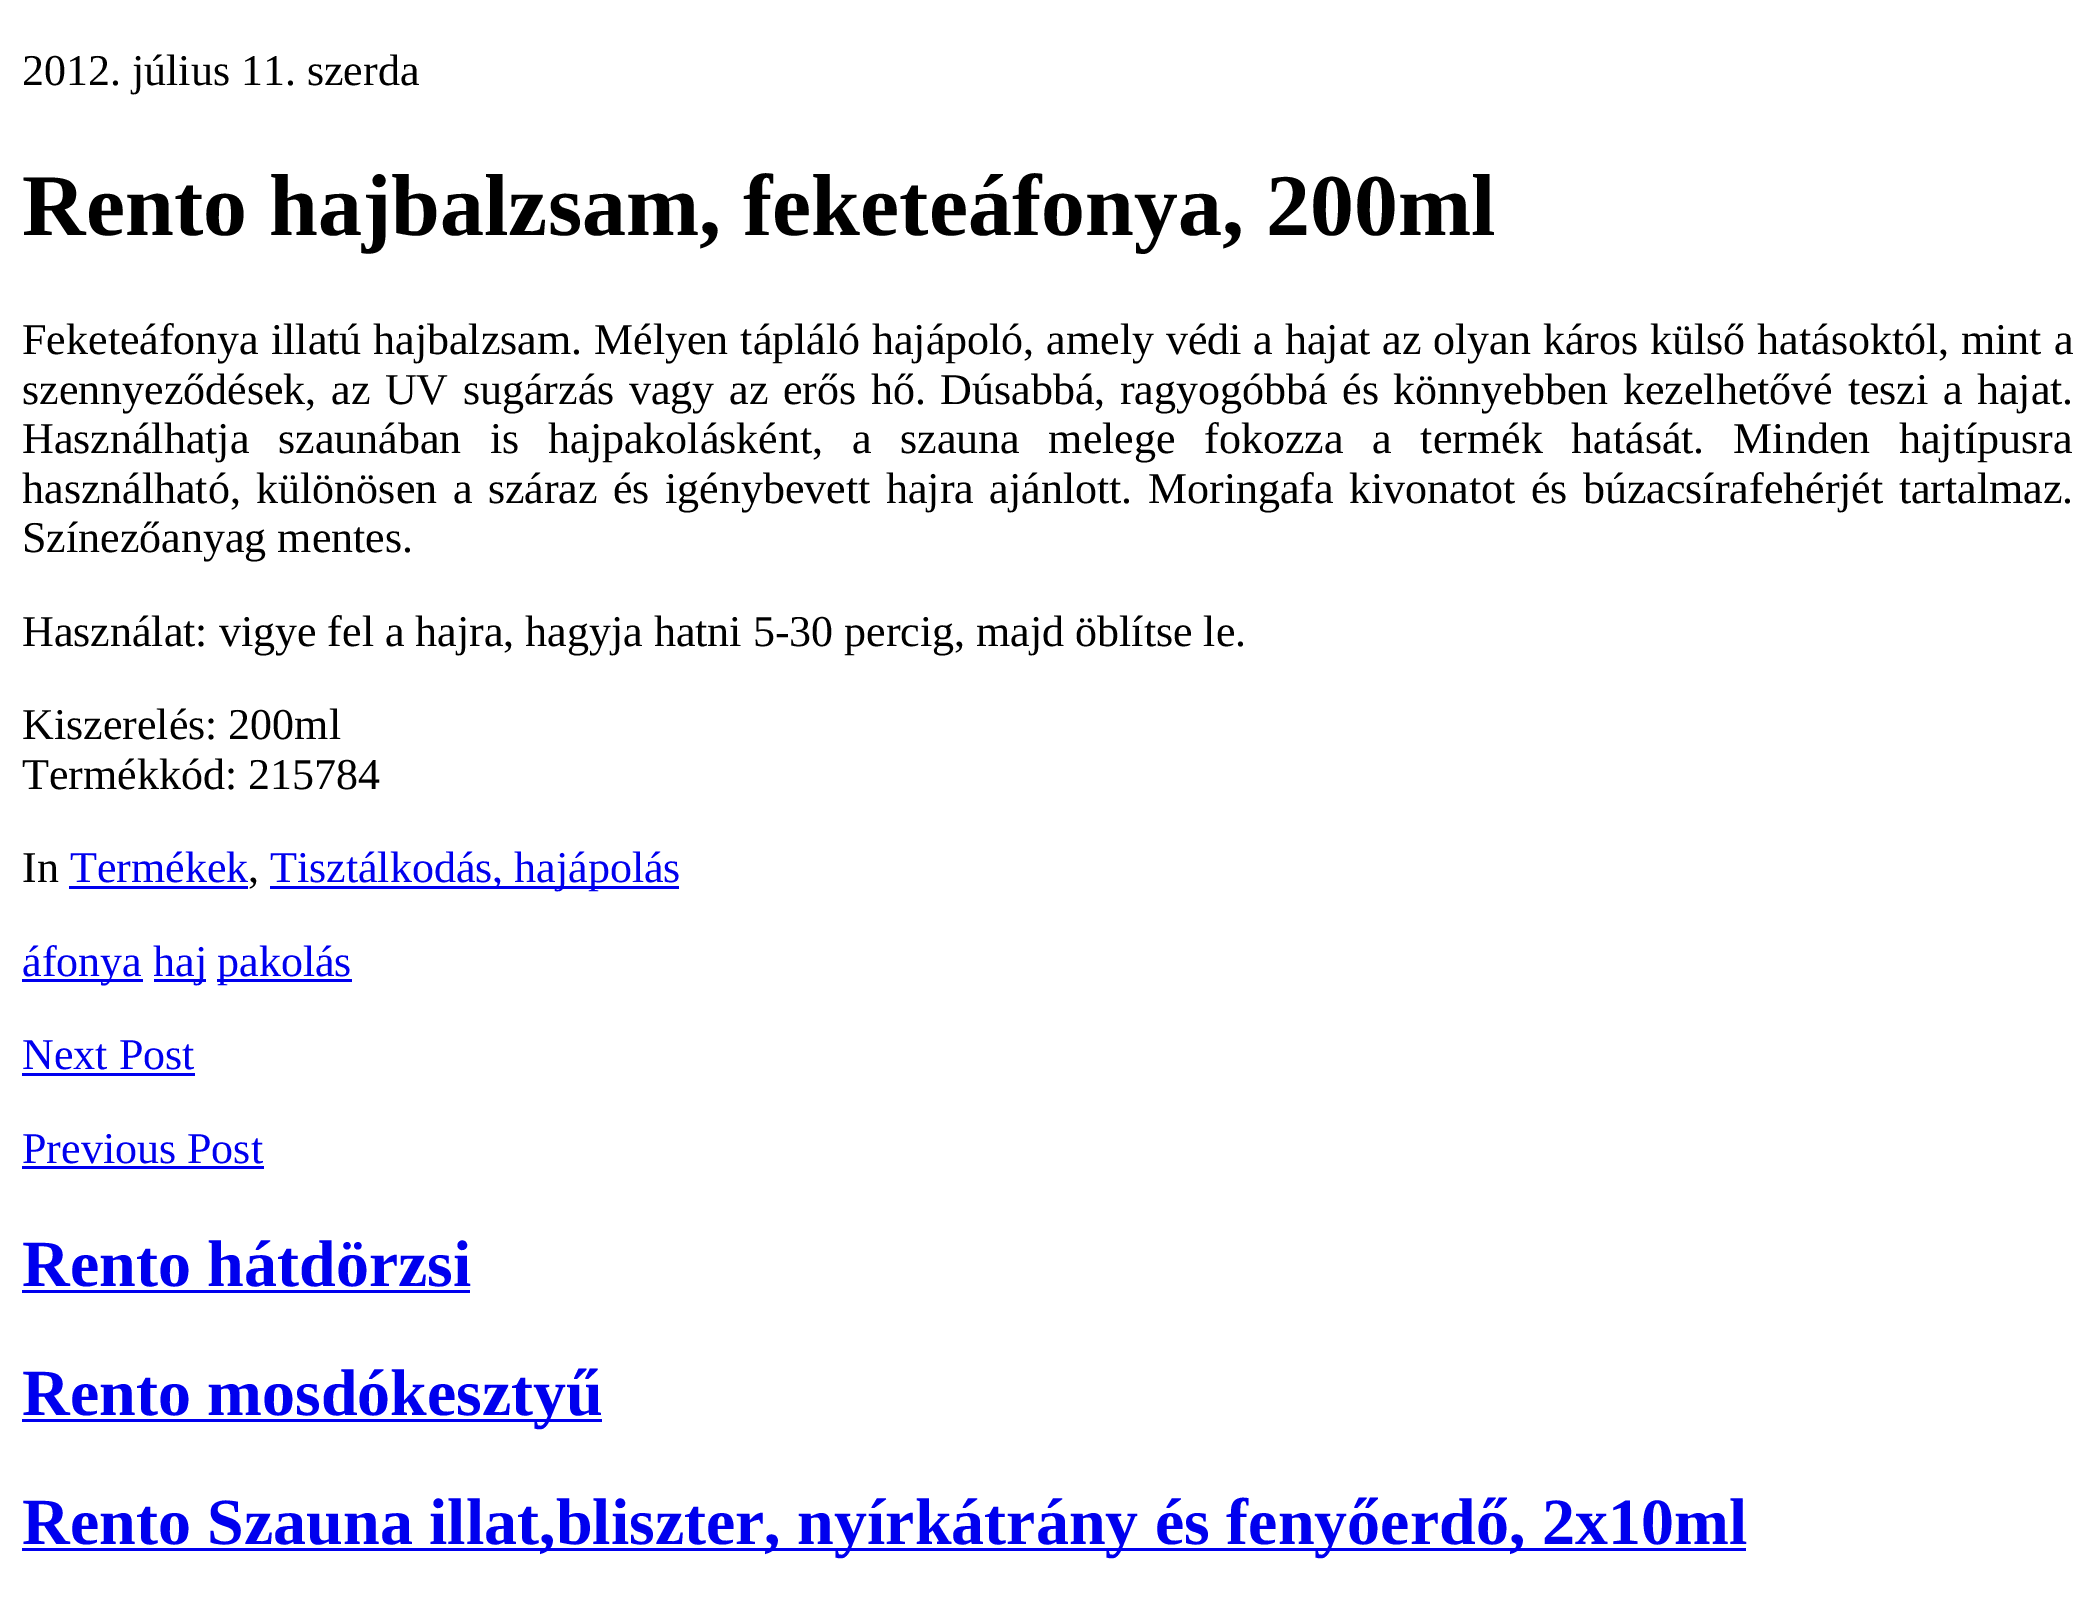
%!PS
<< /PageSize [2093 1603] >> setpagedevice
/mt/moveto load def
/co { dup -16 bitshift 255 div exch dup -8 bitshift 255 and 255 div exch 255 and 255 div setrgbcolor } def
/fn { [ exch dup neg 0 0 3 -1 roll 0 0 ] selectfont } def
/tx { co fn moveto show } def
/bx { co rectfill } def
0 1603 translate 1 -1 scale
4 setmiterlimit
0 0 2093 1603 16#FFFFFF bx
69 886 179 3 16#0000EE bx
270 886 409 3 16#0000EE bx
22 979 121 3 16#0000EE bx
154 979 52 3 16#0000EE bx
217 979 135 3 16#0000EE bx
22 1073 173 3 16#0000EE bx
22 1166 242 3 16#0000EE bx
22 1290 448 3 16#0000EE bx
22 1419 580 3 16#0000EE bx
22 1548 1724 3 16#0000EE bx
(2012. július 11. szerda) 22 85 /LiberationSerif-Regular 44 16#000000 tx
(Rento hajbalzsam, feketeáfonya, 200ml) 22 235 /LiberationSerif-Bold 88 16#000000 tx
/LiberationSerif-Regular 44 fn
22 354 mt .9 0 32 (Feketeáfonya illatú hajbalzsam. Mélyen tápláló hajápoló, amely védi a hajat az olyan káros külső hatásoktól, mint a) widthshow
22 404 mt 3.6 0 32 (szennyeződések, az UV sugárzás vagy az erős hő. Dúsabbá, ragyogóbbá és könnyebben kezelhetővé teszi a hajat.) widthshow
22 453 mt 17.75 0 32 (Használhatja szaunában is hajpakolásként, a szauna melege fokozza a termék hatását. Minden hajtípusra) widthshow
22 503 mt 4.5 0 32 (használható, különösen a száraz és igénybevett hajra ajánlott. Moringafa kivonatot és búzacsírafehérjét tartalmaz.) widthshow
(Színezőanyag mentes.) 22 552 /LiberationSerif-Regular 44 16#000000 tx
(Használat: vigye fel a hajra, hagyja hatni 5-30 percig, majd öblítse le.) 22 646 /LiberationSerif-Regular 44 16#000000 tx
(Kiszerelés: 200ml) 22 739 /LiberationSerif-Regular 44 16#000000 tx
(Termékkód: 215784) 22 789 /LiberationSerif-Regular 44 16#000000 tx
(In) 22 882 /LiberationSerif-Regular 44 16#000000 tx
(Termékek) 70 882 /LiberationSerif-Regular 44 16#0000EE tx
(,) 248 882 /LiberationSerif-Regular 44 16#000000 tx
(Tisztálkodás, hajápolás) 270 882 /LiberationSerif-Regular 44 16#0000EE tx
(áfonya) 22 976 /LiberationSerif-Regular 44 16#0000EE tx
(haj) 153 976 /LiberationSerif-Regular 44 16#0000EE tx
(pakolás) 217 976 /LiberationSerif-Regular 44 16#0000EE tx
(Next Post) 22 1069 /LiberationSerif-Regular 44 16#0000EE tx
(Previous Post) 22 1163 /LiberationSerif-Regular 44 16#0000EE tx
(Rento hátdörzsi) 22 1286 /LiberationSerif-Bold 66 16#0000EE tx
(Rento mosdókesztyű) 22 1415 /LiberationSerif-Bold 66 16#0000EE tx
(Rento Szauna illat,bliszter, nyírkátrány és fenyőerdő, 2x10ml) 22 1544 /LiberationSerif-Bold 66 16#0000EE tx
showpage
